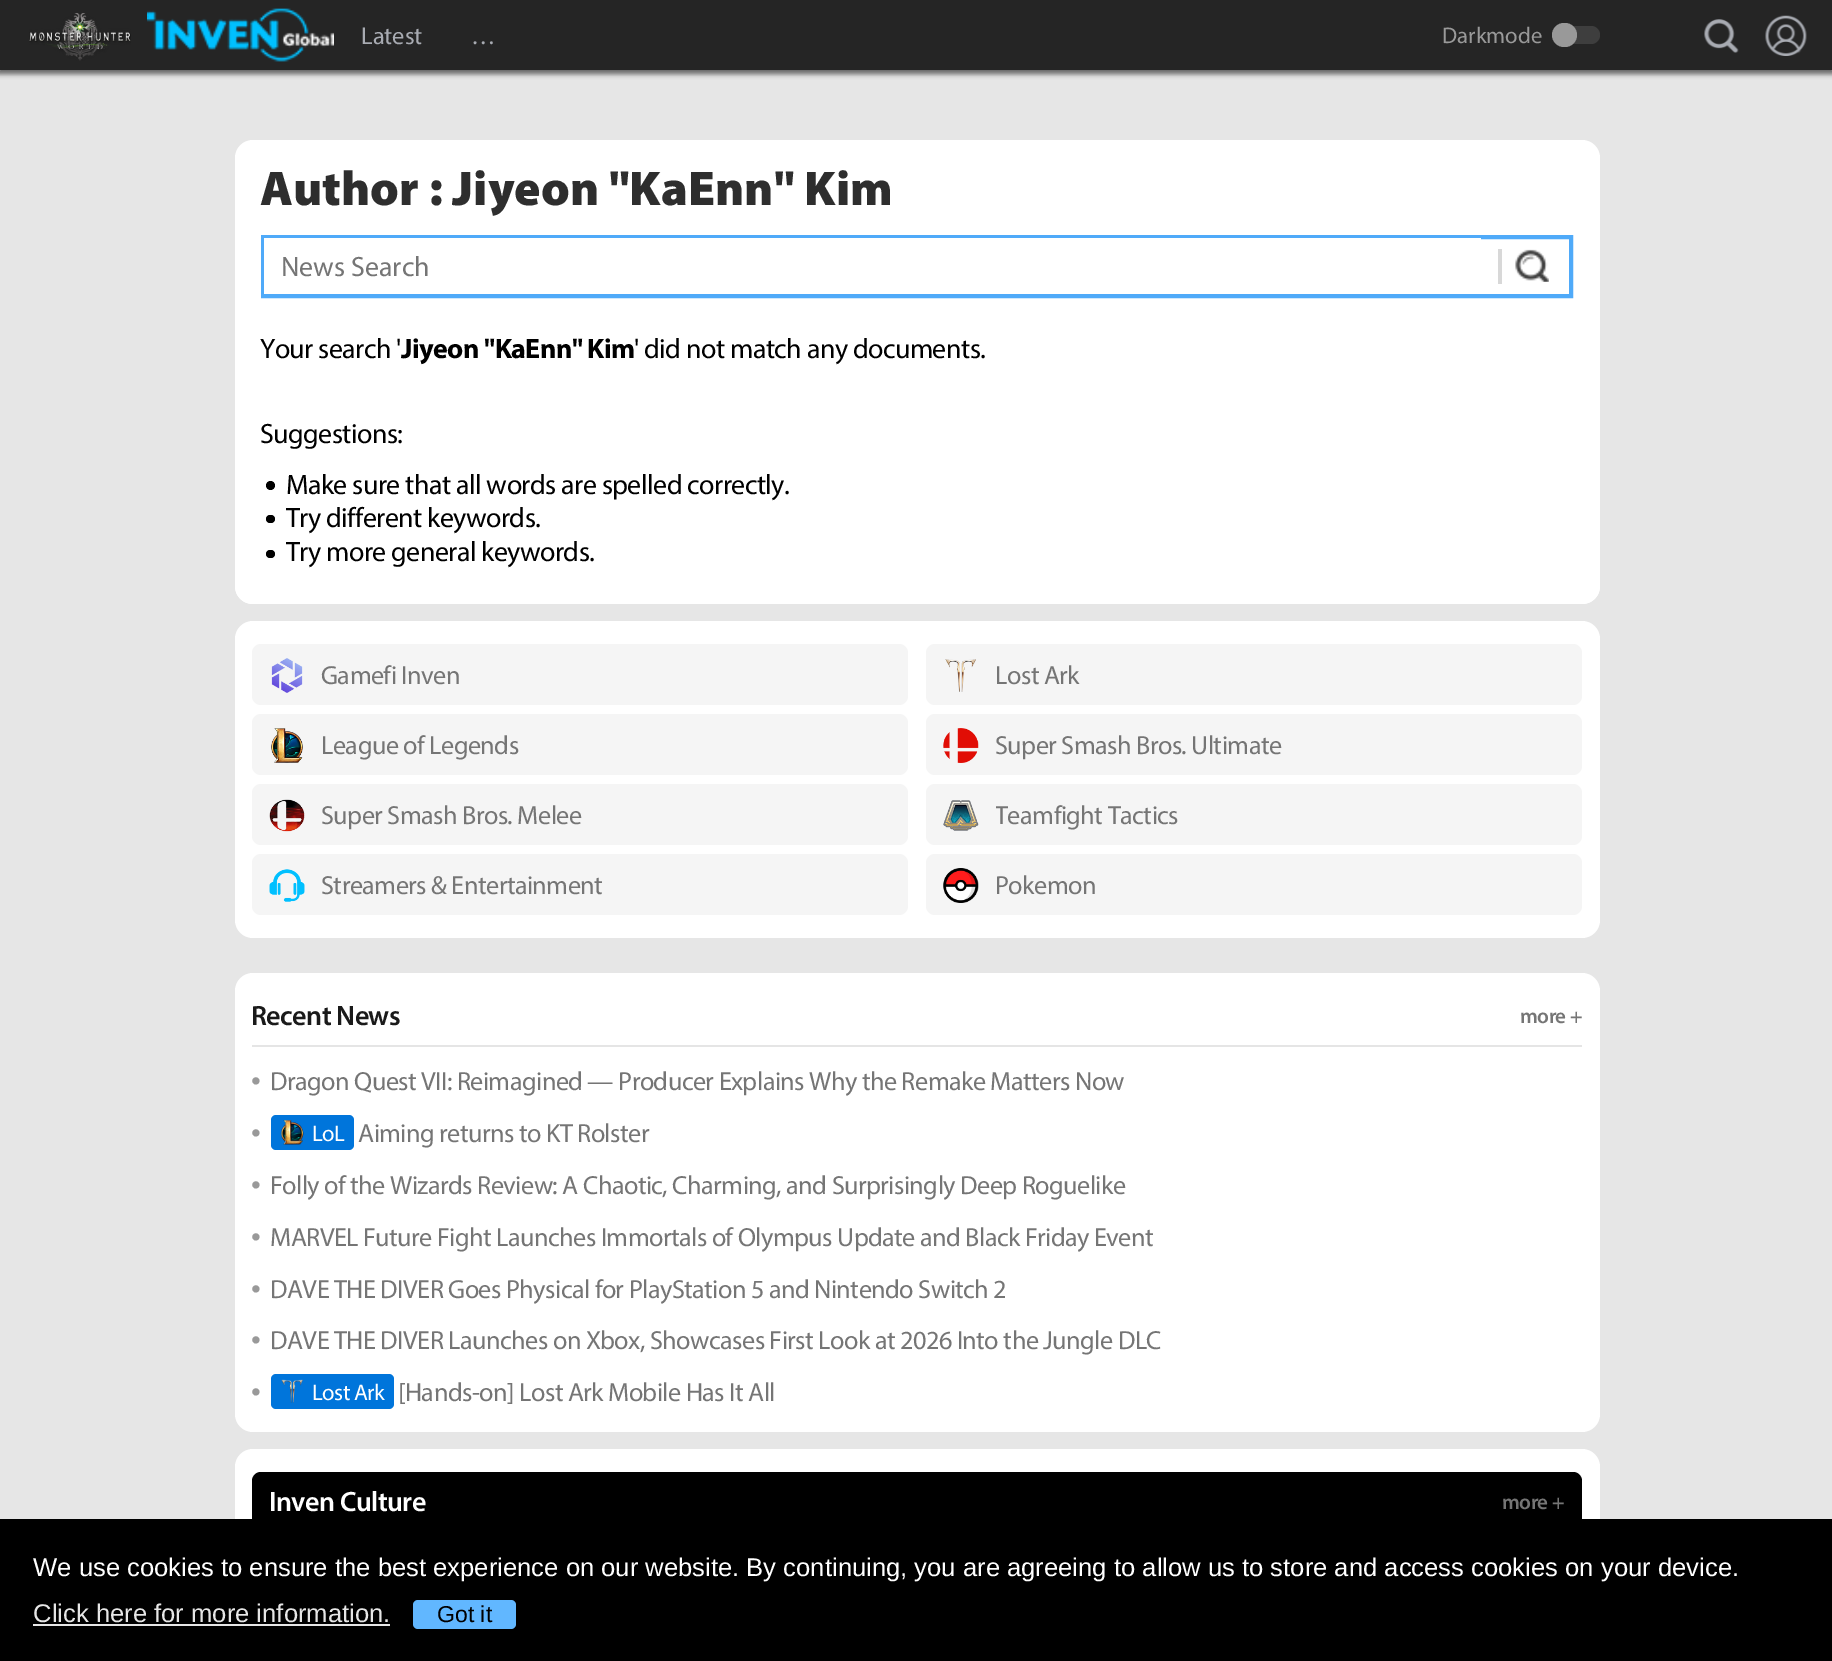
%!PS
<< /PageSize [1832 1661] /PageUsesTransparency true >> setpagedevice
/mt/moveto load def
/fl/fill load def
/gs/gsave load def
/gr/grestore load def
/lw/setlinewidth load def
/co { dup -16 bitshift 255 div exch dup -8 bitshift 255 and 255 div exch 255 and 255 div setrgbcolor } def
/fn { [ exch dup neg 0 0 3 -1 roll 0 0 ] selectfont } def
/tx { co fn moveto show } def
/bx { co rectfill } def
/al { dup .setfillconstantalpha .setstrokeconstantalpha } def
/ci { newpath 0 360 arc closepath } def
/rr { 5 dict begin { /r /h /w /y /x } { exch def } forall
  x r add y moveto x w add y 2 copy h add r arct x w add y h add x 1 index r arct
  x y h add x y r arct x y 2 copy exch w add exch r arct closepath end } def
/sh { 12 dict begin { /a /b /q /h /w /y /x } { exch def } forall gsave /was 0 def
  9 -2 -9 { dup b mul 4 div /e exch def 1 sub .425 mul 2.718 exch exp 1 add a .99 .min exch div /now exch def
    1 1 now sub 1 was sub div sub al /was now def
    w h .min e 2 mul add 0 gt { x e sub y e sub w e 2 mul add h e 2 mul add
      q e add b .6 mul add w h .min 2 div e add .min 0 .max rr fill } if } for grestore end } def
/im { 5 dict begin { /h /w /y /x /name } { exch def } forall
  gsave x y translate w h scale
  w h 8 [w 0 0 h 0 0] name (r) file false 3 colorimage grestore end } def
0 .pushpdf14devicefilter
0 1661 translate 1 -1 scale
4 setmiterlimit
0 0 1832 1661 16#E6E6E6 bx
16#464646 co
-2 0 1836 74 0 2.5 .8 sh
0 0 1832 70 16#252525 bx
(media/1.raw) 29 13 102 48 im
(media/2.raw) 147 8 187 54 im
16#3E3E3E co
1565 26 35 18 9 rr fl
16#999999 co
1552 23 25 24 12 rr fl
(media/3.raw) 1765 15 42 41 im
(media/4.raw) 1704 19 35 34 im
16#FFFFFF co
235 140 1365 464 18 rr fl
235 235 1365 369 18 rr fl
16#4FAAF9 co
4 lw
263 237 1308 59 rectstroke
264 238 1217 56 16#FFFFFF bx
1498 249 4 35 16#D8D8D8 bx
(media/5.raw) 1515 249 34 33 im
16#000000 co
270.5 485.5 4.5 ci fl
266 515 9 8 4 rr fl
266 550 9 8 4 rr fl
16#FFFFFF co
235 621 1365 317 18 rr fl
16#F5F5F5 co
252 644 656 61 9 rr fl
(media/6.raw) 271 658 32 35 im
926 644 656 61 9 rr fl
(media/7.raw) 945 659 31 33 im
252 714 656 61 9 rr fl
(media/8.raw) 271 728 32 35 im
926 714 656 61 9 rr fl
(media/9.raw) 943 728 36 35 im
252 784 656 61 9 rr fl
(media/10.raw) 269 799 36 33 im
926 784 656 61 9 rr fl
(media/11.raw) 943 800 36 31 im
252 854 656 61 9 rr fl
(media/12.raw) 269 869 36 33 im
926 854 656 61 9 rr fl
(media/13.raw) 943 868 36 35 im
16#FFFFFF co
235 973 1365 459 18 rr fl
252 1045 1330 2 16#E5E5E5 bx
16#0075DB co
271 1115 83 35 5 rr fl
(media/14.raw) 280 1120 24 25 im
271 1374 123 35 5 rr fl
(media/15.raw) 281 1379 22 24 im
16#FFFFFF co
235 1449 1365 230 18 rr fl
16#000000 co
252 1472 1330 59 9 rr fl
0 1519 1832 142 16#000000 bx
33 1624 357 2 16#E6E6E6 bx
16#61B7FF co
413 1600 103 29 5 rr fl
(Latest) 361 44 /Myriad-Regular 24.5 16#A8ABB2 tx
(…) 471 44 /Myriad-Regular 24.5 16#A8ABB2 tx
(Darkmode) 1442 43 /Myriad-Regular 22.75 16#999999 tx
(Author : Jiyeon "KaEnn" Kim) 260 205 /Myriad-Black 49 16#2E2E2E tx
(News Search) 281 276 /Myriad-Regular 28 16#757575 tx
16#000000 co
260 358 mt -.55 0 (Your search ') ashow
/Myriad-Bold 28 fn
401 358 mt -.55 0 (Jiyeon "KaEnn" Kim) ashow
/Myriad-Regular 28 fn
634 358 mt -.55 0 (' did not match any documents.) ashow
260 443 mt -.55 0 (Suggestions:) ashow
286 494 mt -.55 0 (Make sure that all words are spelled correctly.) ashow
286 527 mt -.55 0 (Try different keywords.) ashow
286 561 mt -.55 0 (Try more general keywords.) ashow
/Myriad-Regular 26.25 fn
16#757575 co
321 684 mt -.55 0 (Gamefi Inven) ashow
995 684 mt -.55 0 (Lost Ark) ashow
321 754 mt -.55 0 (League of Legends) ashow
995 754 mt -.55 0 (Super Smash Bros. Ultimate) ashow
321 824 mt -.55 0 (Super Smash Bros. Melee) ashow
gs
996 784 558 61 rectclip
995 824 mt -.55 0 (Teamfight Tactics) ashow
gr
321 894 mt -.55 0 (Streamers & Entertainment) ashow
995 894 mt -.55 0 (Pokemon) ashow
/Myriad-SemiBold 28 fn
16#1A1A1A co
251 1025 mt -.55 0 (Recent News) ashow
/Myriad-SemiBold 21 fn
16#757575 co
1520 1023 mt -.55 0 (more +) ashow
/Myriad-Regular 35 fn
16#999999 co
251 1090 mt -.55 0 (•) ashow
/Myriad-Regular 26.25 fn
16#757575 co
270 1090 mt -.55 0 (Dragon Quest VII: Reimagined — Producer Explains Why the Remake Matters Now) ashow
/Myriad-Regular 35 fn
16#999999 co
251 1142 mt -.55 0 (•) ashow
/Myriad-Regular 22.75 fn
16#FFFFFF co
312 1141 mt -.55 0 (LoL) ashow
/Myriad-Regular 26.25 fn
16#757575 co
358 1142 mt -.55 0 (Aiming returns to KT Rolster) ashow
/Myriad-Regular 35 fn
16#999999 co
251 1194 mt -.55 0 (•) ashow
/Myriad-Regular 26.25 fn
16#757575 co
270 1194 mt -.55 0 (Folly of the Wizards Review: A Chaotic, Charming, and Surprisingly Deep Roguelike) ashow
/Myriad-Regular 35 fn
16#999999 co
251 1246 mt -.55 0 (•) ashow
/Myriad-Regular 26.25 fn
16#757575 co
270 1246 mt -.55 0 (MARVEL Future Fight Launches Immortals of Olympus Update and Black Friday Event) ashow
/Myriad-Regular 35 fn
16#999999 co
251 1298 mt -.55 0 (•) ashow
/Myriad-Regular 26.25 fn
16#757575 co
270 1298 mt -.55 0 (DAVE THE DIVER Goes Physical for PlayStation 5 and Nintendo Switch 2) ashow
/Myriad-Regular 35 fn
16#999999 co
251 1349 mt -.55 0 (•) ashow
/Myriad-Regular 26.25 fn
16#757575 co
270 1349 mt -.55 0 (DAVE THE DIVER Launches on Xbox, Showcases First Look at 2026 Into the Jungle DLC) ashow
/Myriad-Regular 35 fn
16#999999 co
251 1401 mt -.55 0 (•) ashow
/Myriad-Regular 22.75 fn
16#FFFFFF co
312 1400 mt -.55 0 (Lost Ark) ashow
/Myriad-Regular 26.25 fn
16#757575 co
398 1401 mt -.55 0 ([Hands-on] Lost Ark Mobile Has It All) ashow
/Myriad-SemiBold 28 fn
16#FFFFFF co
269 1511 mt -.55 0 (Inven Culture) ashow
/Myriad-SemiBold 21 fn
16#757575 co
1502 1509 mt -.55 0 (more +) ashow
(We use cookies to ensure the best experience on our website. By continuing, you are agreeing to allow us to store and access cookies on your device.) 33 1576 /LiberationSans-Regular 25.62 16#FFFFFF tx
(Click here for more information.) 33 1622 /LiberationSans-Regular 25.62 16#E6E6E6 tx
(Got it) 437 1622 /LiberationSans-Regular 23 16#000000 tx
.poppdf14devicefilter showpage
